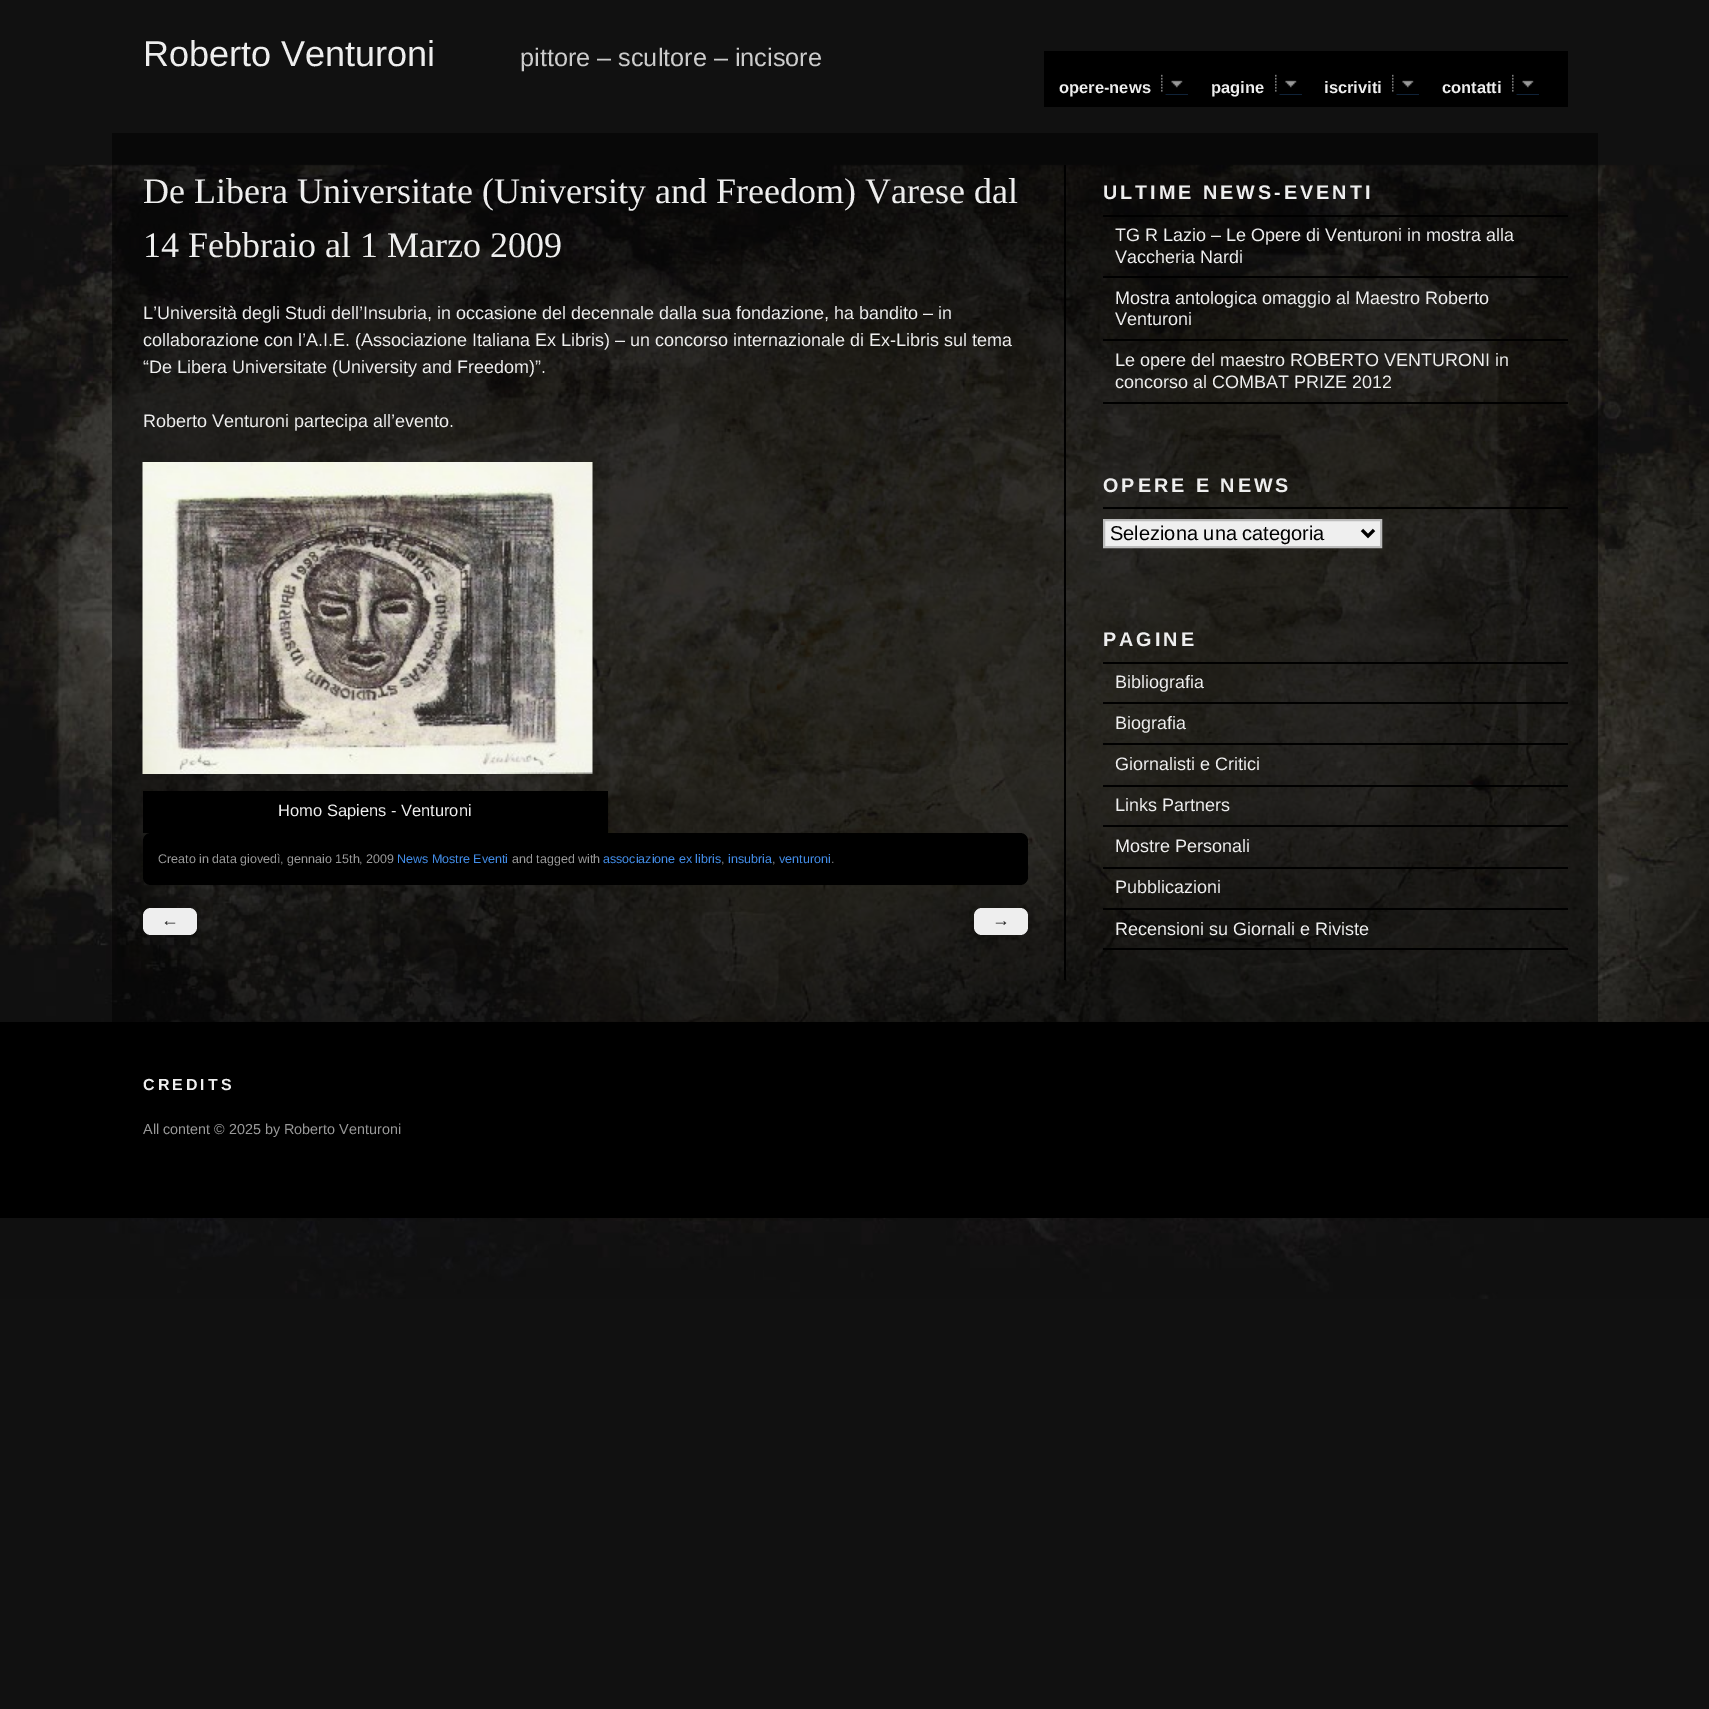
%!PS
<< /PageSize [1709 1709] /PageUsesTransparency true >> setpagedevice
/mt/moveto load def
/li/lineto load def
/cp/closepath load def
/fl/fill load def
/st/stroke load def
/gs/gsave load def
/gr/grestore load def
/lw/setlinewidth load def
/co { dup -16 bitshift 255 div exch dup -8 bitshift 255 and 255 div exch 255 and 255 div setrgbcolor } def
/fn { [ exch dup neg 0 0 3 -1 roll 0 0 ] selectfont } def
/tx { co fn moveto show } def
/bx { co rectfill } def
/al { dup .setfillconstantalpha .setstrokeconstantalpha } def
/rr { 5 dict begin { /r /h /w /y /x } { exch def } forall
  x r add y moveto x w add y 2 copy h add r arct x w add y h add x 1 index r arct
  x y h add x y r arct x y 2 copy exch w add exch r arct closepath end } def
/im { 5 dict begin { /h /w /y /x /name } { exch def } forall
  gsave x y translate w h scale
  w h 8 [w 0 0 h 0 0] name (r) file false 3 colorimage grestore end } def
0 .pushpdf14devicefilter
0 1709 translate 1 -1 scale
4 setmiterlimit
0 0 1709 1709 16#111111 bx
(media/1.raw) 0 164 1709 1135 im
1044 51 524 56 16#000000 bx
(media/2.raw) 1161 74 27 21 im
(media/3.raw) 1275 74 27 21 im
(media/4.raw) 1392 74 27 21 im
(media/2.raw) 1512 74 27 21 im
0.5 al
112 133 1486 889 16#000000 bx
1 al
1064 165 2 815 16#000000 bx
(media/5.raw) 142 462 451 312 im
143 791 465 42 16#000000 bx
143 833 885 52 8 rr fl
16#EEEEEE co
143 908 54 27 8 rr fl
974 908 54 27 8 rr fl
1103 215 465 2 16#000000 bx
1103 276 465 2 16#000000 bx
1103 339 465 2 16#000000 bx
1103 402 465 2 16#000000 bx
1103 507 465 2 16#000000 bx
16#EFEFEF co
1104 520 mt 1381 520 li 1381 547 li 1104 547 li cp gs fl gr
16#BBBBBB co
2 lw
st
16#000000 co
3 lw
1362 530 mt 1368 536 li 1374 530 li st
1103 662 465 2 16#000000 bx
1103 702 465 2 16#000000 bx
1103 743 465 2 16#000000 bx
1103 785 465 2 16#000000 bx
1103 825 465 2 16#000000 bx
1103 867 465 2 16#000000 bx
1103 908 465 2 16#000000 bx
1103 948 465 2 16#000000 bx
0 1022 1709 196 16#000000 bx
(Roberto Venturoni) 143 66 /LiberationSans-Regular 36 16#EEEEEE tx
(pittore – scultore – incisore) 520 66 /LiberationSans-Regular 25.25 16#CCCCCC tx
(opere-news) 1059 93 /LiberationSans-Bold 16.5 16#EEEEEE tx
(pagine) 1211 93 /LiberationSans-Bold 16.5 16#EEEEEE tx
(iscriviti) 1324 93 /LiberationSans-Bold 16.5 16#EEEEEE tx
(contatti) 1442 93 /LiberationSans-Bold 16.5 16#EEEEEE tx
(De Libera Universitate \(University and Freedom\) Varese dal) 143 203 /LiberationSerif-Regular 36 16#EEEEEE tx
(14 Febbraio al 1 Marzo 2009) 143 257 /LiberationSerif-Regular 36 16#EEEEEE tx
(L’Università degli Studi dell’Insubria, in occasione del decennale dalla sua fondazione, ha bandito – in) 143 319 /LiberationSans-Regular 18 16#EEEEEE tx
(collaborazione con l’A.I.E. \(Associazione Italiana Ex Libris\) – un concorso internazionale di Ex-Libris sul tema) 143 346 /LiberationSans-Regular 18 16#EEEEEE tx
(“De Libera Universitate \(University and Freedom\)”.) 143 373 /LiberationSans-Regular 18 16#EEEEEE tx
(Roberto Venturoni partecipa all’evento.) 143 427 /LiberationSans-Regular 18 16#EEEEEE tx
(Homo Sapiens - Venturoni) 278 816 /LiberationSans-Regular 16.5 16#EEEEEE tx
(Creato in data giovedì, gennaio 15th, 2009) 158 863 /LiberationSans-Regular 12.5 16#999999 tx
(News Mostre Eventi) 397 863 /LiberationSans-Regular 12.5 16#428CE7 tx
(and tagged with) 512 863 /LiberationSans-Regular 12.5 16#999999 tx
(associazione ex libris) 603 863 /LiberationSans-Regular 12.5 16#428CE7 tx
(,) 721 863 /LiberationSans-Regular 12.5 16#999999 tx
(insubria) 728 863 /LiberationSans-Regular 12.5 16#428CE7 tx
(,) 772 863 /LiberationSans-Regular 12.5 16#999999 tx
(venturoni) 779 863 /LiberationSans-Regular 12.5 16#428CE7 tx
(.) 831 863 /LiberationSans-Regular 12.5 16#999999 tx
(←) 161 926 /LiberationSans-Regular 18 16#222222 tx
(→) 992 926 /LiberationSans-Regular 18 16#222222 tx
/LiberationSans-Bold 19.75 fn
16#EEEEEE co
1103 199 mt 3 0 (ULTIME NEWS-EVENTI) ashow
(TG R Lazio – Le Opere di Venturoni in mostra alla) 1115 241 /LiberationSans-Regular 18 16#EEEEEE tx
(Vaccheria Nardi) 1115 263 /LiberationSans-Regular 18 16#EEEEEE tx
(Mostra antologica omaggio al Maestro Roberto) 1115 304 /LiberationSans-Regular 18 16#EEEEEE tx
(Venturoni) 1115 325 /LiberationSans-Regular 18 16#EEEEEE tx
(Le opere del maestro ROBERTO VENTURONI in) 1115 366 /LiberationSans-Regular 18 16#EEEEEE tx
(concorso al COMBAT PRIZE 2012) 1115 388 /LiberationSans-Regular 18 16#EEEEEE tx
/LiberationSans-Bold 19.75 fn
1103 492 mt 3 0 (OPERE E NEWS) ashow
(Seleziona una categoria) 1110 540 /LiberationSans-Regular 20 16#000000 tx
/LiberationSans-Bold 19.75 fn
16#EEEEEE co
1103 646 mt 3 0 (PAGINE) ashow
(Bibliografia) 1115 688 /LiberationSans-Regular 18 16#EEEEEE tx
(Biografia) 1115 729 /LiberationSans-Regular 18 16#EEEEEE tx
(Giornalisti e Critici) 1115 770 /LiberationSans-Regular 18 16#EEEEEE tx
(Links Partners) 1115 811 /LiberationSans-Regular 18 16#EEEEEE tx
(Mostre Personali) 1115 852 /LiberationSans-Regular 18 16#EEEEEE tx
(Pubblicazioni) 1115 893 /LiberationSans-Regular 18 16#EEEEEE tx
(Recensioni su Giornali e Riviste) 1115 935 /LiberationSans-Regular 18 16#EEEEEE tx
/LiberationSans-Bold 16 fn
143 1090 mt 3 0 (CREDITS) ashow
(All content © 2025 by Roberto Venturoni) 143 1134 /LiberationSans-Regular 14.4 16#999999 tx
.poppdf14devicefilter showpage
